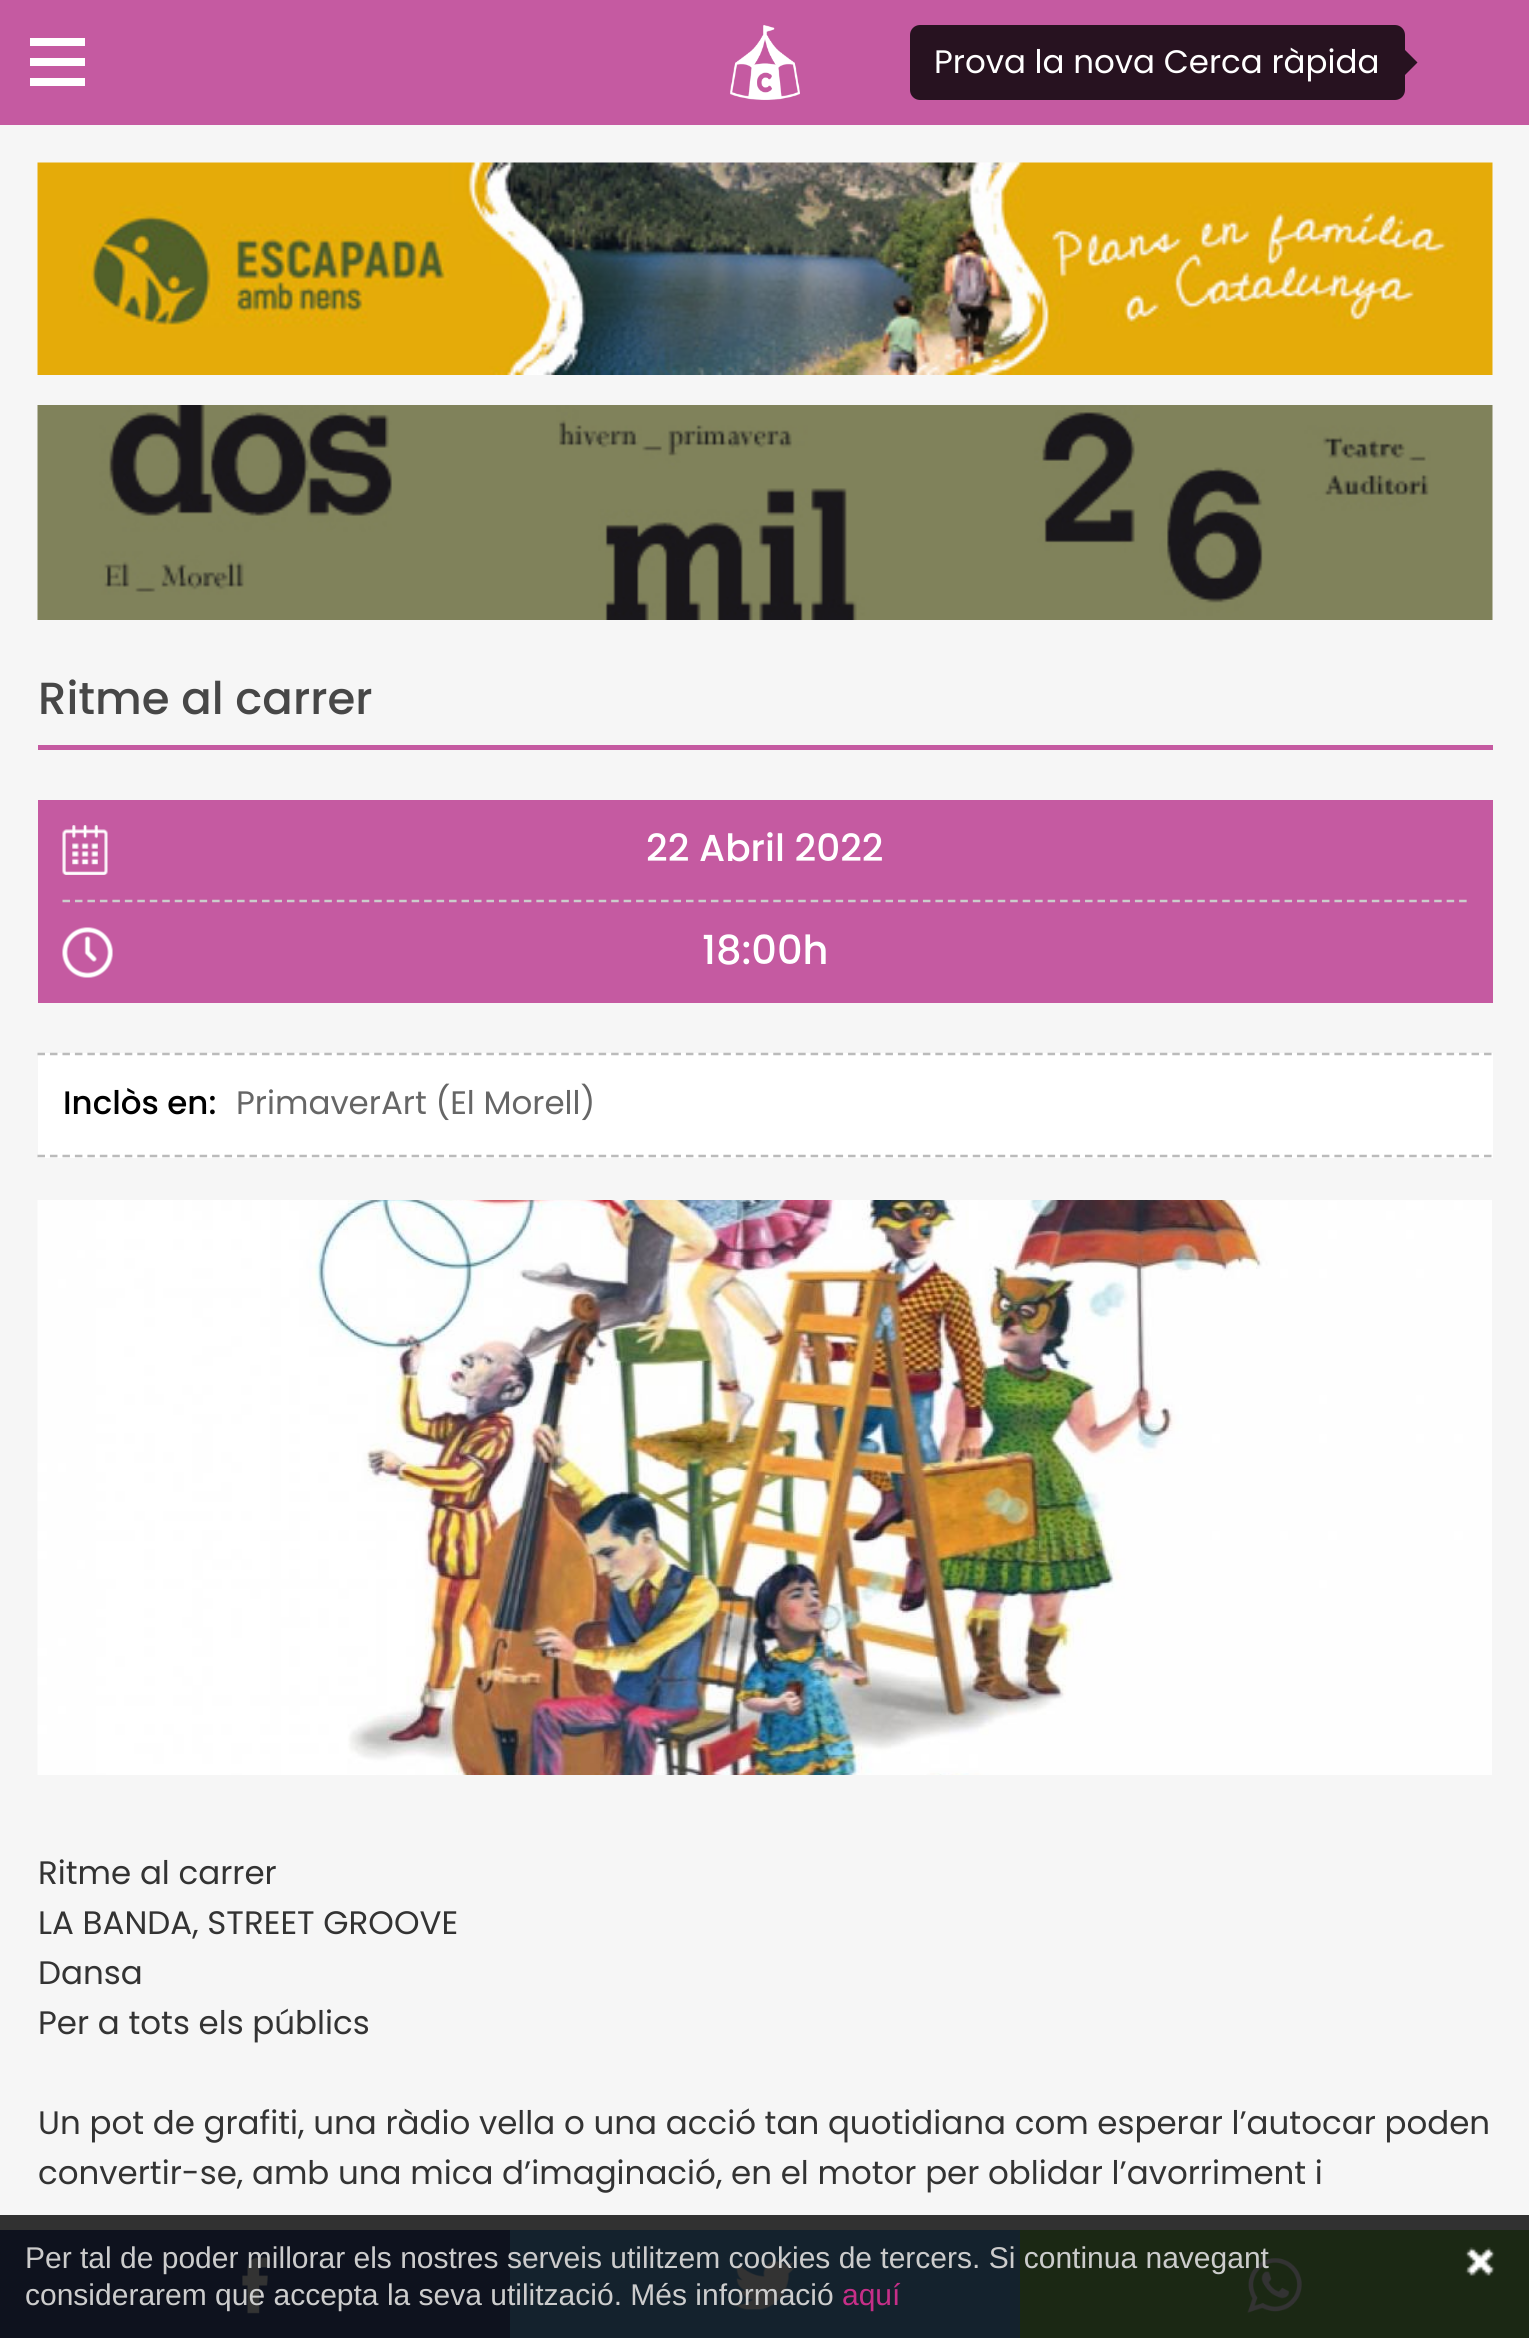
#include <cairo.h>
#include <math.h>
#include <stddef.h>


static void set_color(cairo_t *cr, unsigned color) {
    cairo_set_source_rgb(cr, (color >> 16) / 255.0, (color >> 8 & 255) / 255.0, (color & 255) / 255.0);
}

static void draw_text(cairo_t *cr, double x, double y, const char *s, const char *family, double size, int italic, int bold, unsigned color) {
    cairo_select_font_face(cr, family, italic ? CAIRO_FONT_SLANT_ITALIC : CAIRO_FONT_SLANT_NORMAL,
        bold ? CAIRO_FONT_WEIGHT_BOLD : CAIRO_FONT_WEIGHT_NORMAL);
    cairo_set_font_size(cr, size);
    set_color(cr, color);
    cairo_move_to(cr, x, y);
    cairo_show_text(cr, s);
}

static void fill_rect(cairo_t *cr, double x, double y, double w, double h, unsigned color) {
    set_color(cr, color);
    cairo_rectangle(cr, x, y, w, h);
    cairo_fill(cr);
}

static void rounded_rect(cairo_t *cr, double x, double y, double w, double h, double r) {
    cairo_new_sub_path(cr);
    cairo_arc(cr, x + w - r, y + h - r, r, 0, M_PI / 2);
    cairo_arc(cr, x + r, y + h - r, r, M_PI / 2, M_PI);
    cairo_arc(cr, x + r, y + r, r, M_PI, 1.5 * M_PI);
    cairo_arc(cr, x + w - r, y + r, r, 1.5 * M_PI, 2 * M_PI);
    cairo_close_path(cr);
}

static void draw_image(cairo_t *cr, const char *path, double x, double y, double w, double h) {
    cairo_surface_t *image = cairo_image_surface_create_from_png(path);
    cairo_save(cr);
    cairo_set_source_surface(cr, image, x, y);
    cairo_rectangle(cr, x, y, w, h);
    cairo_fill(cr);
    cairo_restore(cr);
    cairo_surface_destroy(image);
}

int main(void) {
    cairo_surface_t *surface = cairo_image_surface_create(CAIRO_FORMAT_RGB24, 1529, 2338);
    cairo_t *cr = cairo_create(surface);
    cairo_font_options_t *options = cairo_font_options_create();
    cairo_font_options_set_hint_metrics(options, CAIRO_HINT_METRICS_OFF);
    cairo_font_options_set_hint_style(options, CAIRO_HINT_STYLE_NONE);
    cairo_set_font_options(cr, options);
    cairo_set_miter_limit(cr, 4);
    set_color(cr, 0xF6F6F6);
    cairo_paint(cr);
    fill_rect(cr, 0, 0, 1529, 125, 0xC55AA1);
    fill_rect(cr, 30, 38, 55, 8, 0xFFFFFF);
    fill_rect(cr, 30, 58, 55, 8, 0xFFFFFF);
    fill_rect(cr, 30, 78, 55, 8, 0xFFFFFF);
    draw_image(cr, "assets/img1.png", 730, 25, 70, 75);
    set_color(cr, 0x271220);
    rounded_rect(cr, 910, 25, 495, 75, 10);
    cairo_fill(cr);
    draw_text(cr, 934, 73, "Prova la nova Cerca ràpida", "Poppins", 32.5, 0, 0, 0xFFFFFF);
    set_color(cr, 0x271220);
    cairo_new_path(cr);
    cairo_move_to(cr, 1405, 75);
    cairo_line_to(cr, 1405, 50);
    cairo_line_to(cr, 1417.5, 62.5);
    cairo_close_path(cr);
    cairo_fill(cr);
    draw_image(cr, "assets/img2.png", 37, 162, 1456, 213);
    draw_image(cr, "assets/img3.png", 37, 405, 1456, 215);
    fill_rect(cr, 38, 745, 1455, 5, 0xC55AA1);
    draw_text(cr, 38, 714, "Ritme al carrer", "Poppins Medium", 45, 0, 0, 0x474747);
    fill_rect(cr, 38, 800, 1455, 203, 0xC55AA1);
    draw_image(cr, "assets/img4.png", 62, 825, 46, 50);
    draw_text(cr, 646, 861, "22 Abril 2022", "Poppins Medium", 37.5, 0, 0, 0xFFFFFF);
    draw_image(cr, "assets/img5.png", 62, 927, 51, 51);
    cairo_new_path(cr);
    cairo_move_to(cr, 62.5, 901);
    cairo_line_to(cr, 1467.5, 901);
    set_color(cr, 0xCCCCCC);
    cairo_set_line_width(cr, 2.5);
    cairo_set_dash(cr, (double[]){7.5, 4.97}, 2, 0);
    cairo_stroke(cr);
    draw_text(cr, 702, 964, "18:00h", "Poppins Medium", 40, 0, 0, 0xFFFFFF);
    fill_rect(cr, 38, 1053, 1455, 105, 0xFFFFFF);
    cairo_new_path(cr);
    cairo_move_to(cr, 37.5, 1054);
    cairo_line_to(cr, 1492.5, 1054);
    set_color(cr, 0xBBBBBB);
    cairo_stroke(cr);
    cairo_new_path(cr);
    cairo_move_to(cr, 37.5, 1156);
    cairo_line_to(cr, 1492.5, 1156);
    cairo_stroke(cr);
    draw_text(cr, 63, 1114, "Inclòs en:", "Poppins Medium", 32.5, 0, 0, 0x000000);
    draw_text(cr, 236, 1114, "PrimaverArt (El Morell)", "Poppins", 32.5, 0, 0, 0x666666);
    draw_image(cr, "assets/img6.png", 37, 1200, 1455, 575);
    draw_text(cr, 38, 1884, "Ritme al carrer", "Poppins", 32.5, 0, 0, 0x333333);
    draw_text(cr, 38, 1934, "LA BANDA, STREET GROOVE", "Poppins", 32.5, 0, 0, 0x333333);
    draw_text(cr, 38, 1984, "Dansa", "Poppins", 32.5, 0, 0, 0x333333);
    draw_text(cr, 38, 2034, "Per a tots els públics", "Poppins", 32.5, 0, 0, 0x333333);
    draw_text(cr, 38, 2134, "Un pot de grafiti, una ràdio vella o una acció tan quotidiana com esperar l’autocar poden", "Poppins", 32.5, 0, 0, 0x333333);
    draw_text(cr, 38, 2184, "convertir-se, amb una mica d’imaginació, en el motor per oblidar l’avorriment i", "Poppins", 32.5, 0, 0, 0x333333);
    fill_rect(cr, 0, 2230, 510, 108, 0x455A97);
    draw_image(cr, "assets/img7.png", 242, 2257, 26, 57);
    fill_rect(cr, 510, 2230, 510, 108, 0x63A8E0);
    draw_image(cr, "assets/img8.png", 734, 2261, 61, 49);
    fill_rect(cr, 1020, 2230, 509, 108, 0x87CA63);
    draw_image(cr, "assets/img9.png", 1247, 2258, 55, 55);
    cairo_set_source_rgba(cr, 0, 0, 0, 0.8);
    cairo_rectangle(cr, 0, 2215, 1529, 123);
    cairo_fill(cr);
    draw_text(cr, 25, 2268, "Per tal de poder millorar els nostres serveis utilitzem cookies de tercers. Si continua navegant", "Liberation Sans", 30, 0, 0, 0xCCCCCC);
    draw_image(cr, "assets/img10.png", 1465, 2247, 30, 29);
    draw_text(cr, 25, 2305, "considerarem que accepta la seva utilització. Més informació", "Liberation Sans", 30, 0, 0, 0xCCCCCC);
    draw_text(cr, 842, 2305, "aquí", "Liberation Sans", 30, 0, 0, 0xC62F88);
    cairo_surface_write_to_png(surface, "output.png");
    cairo_font_options_destroy(options);
    cairo_destroy(cr);
    cairo_surface_destroy(surface);
    return 0;
}
